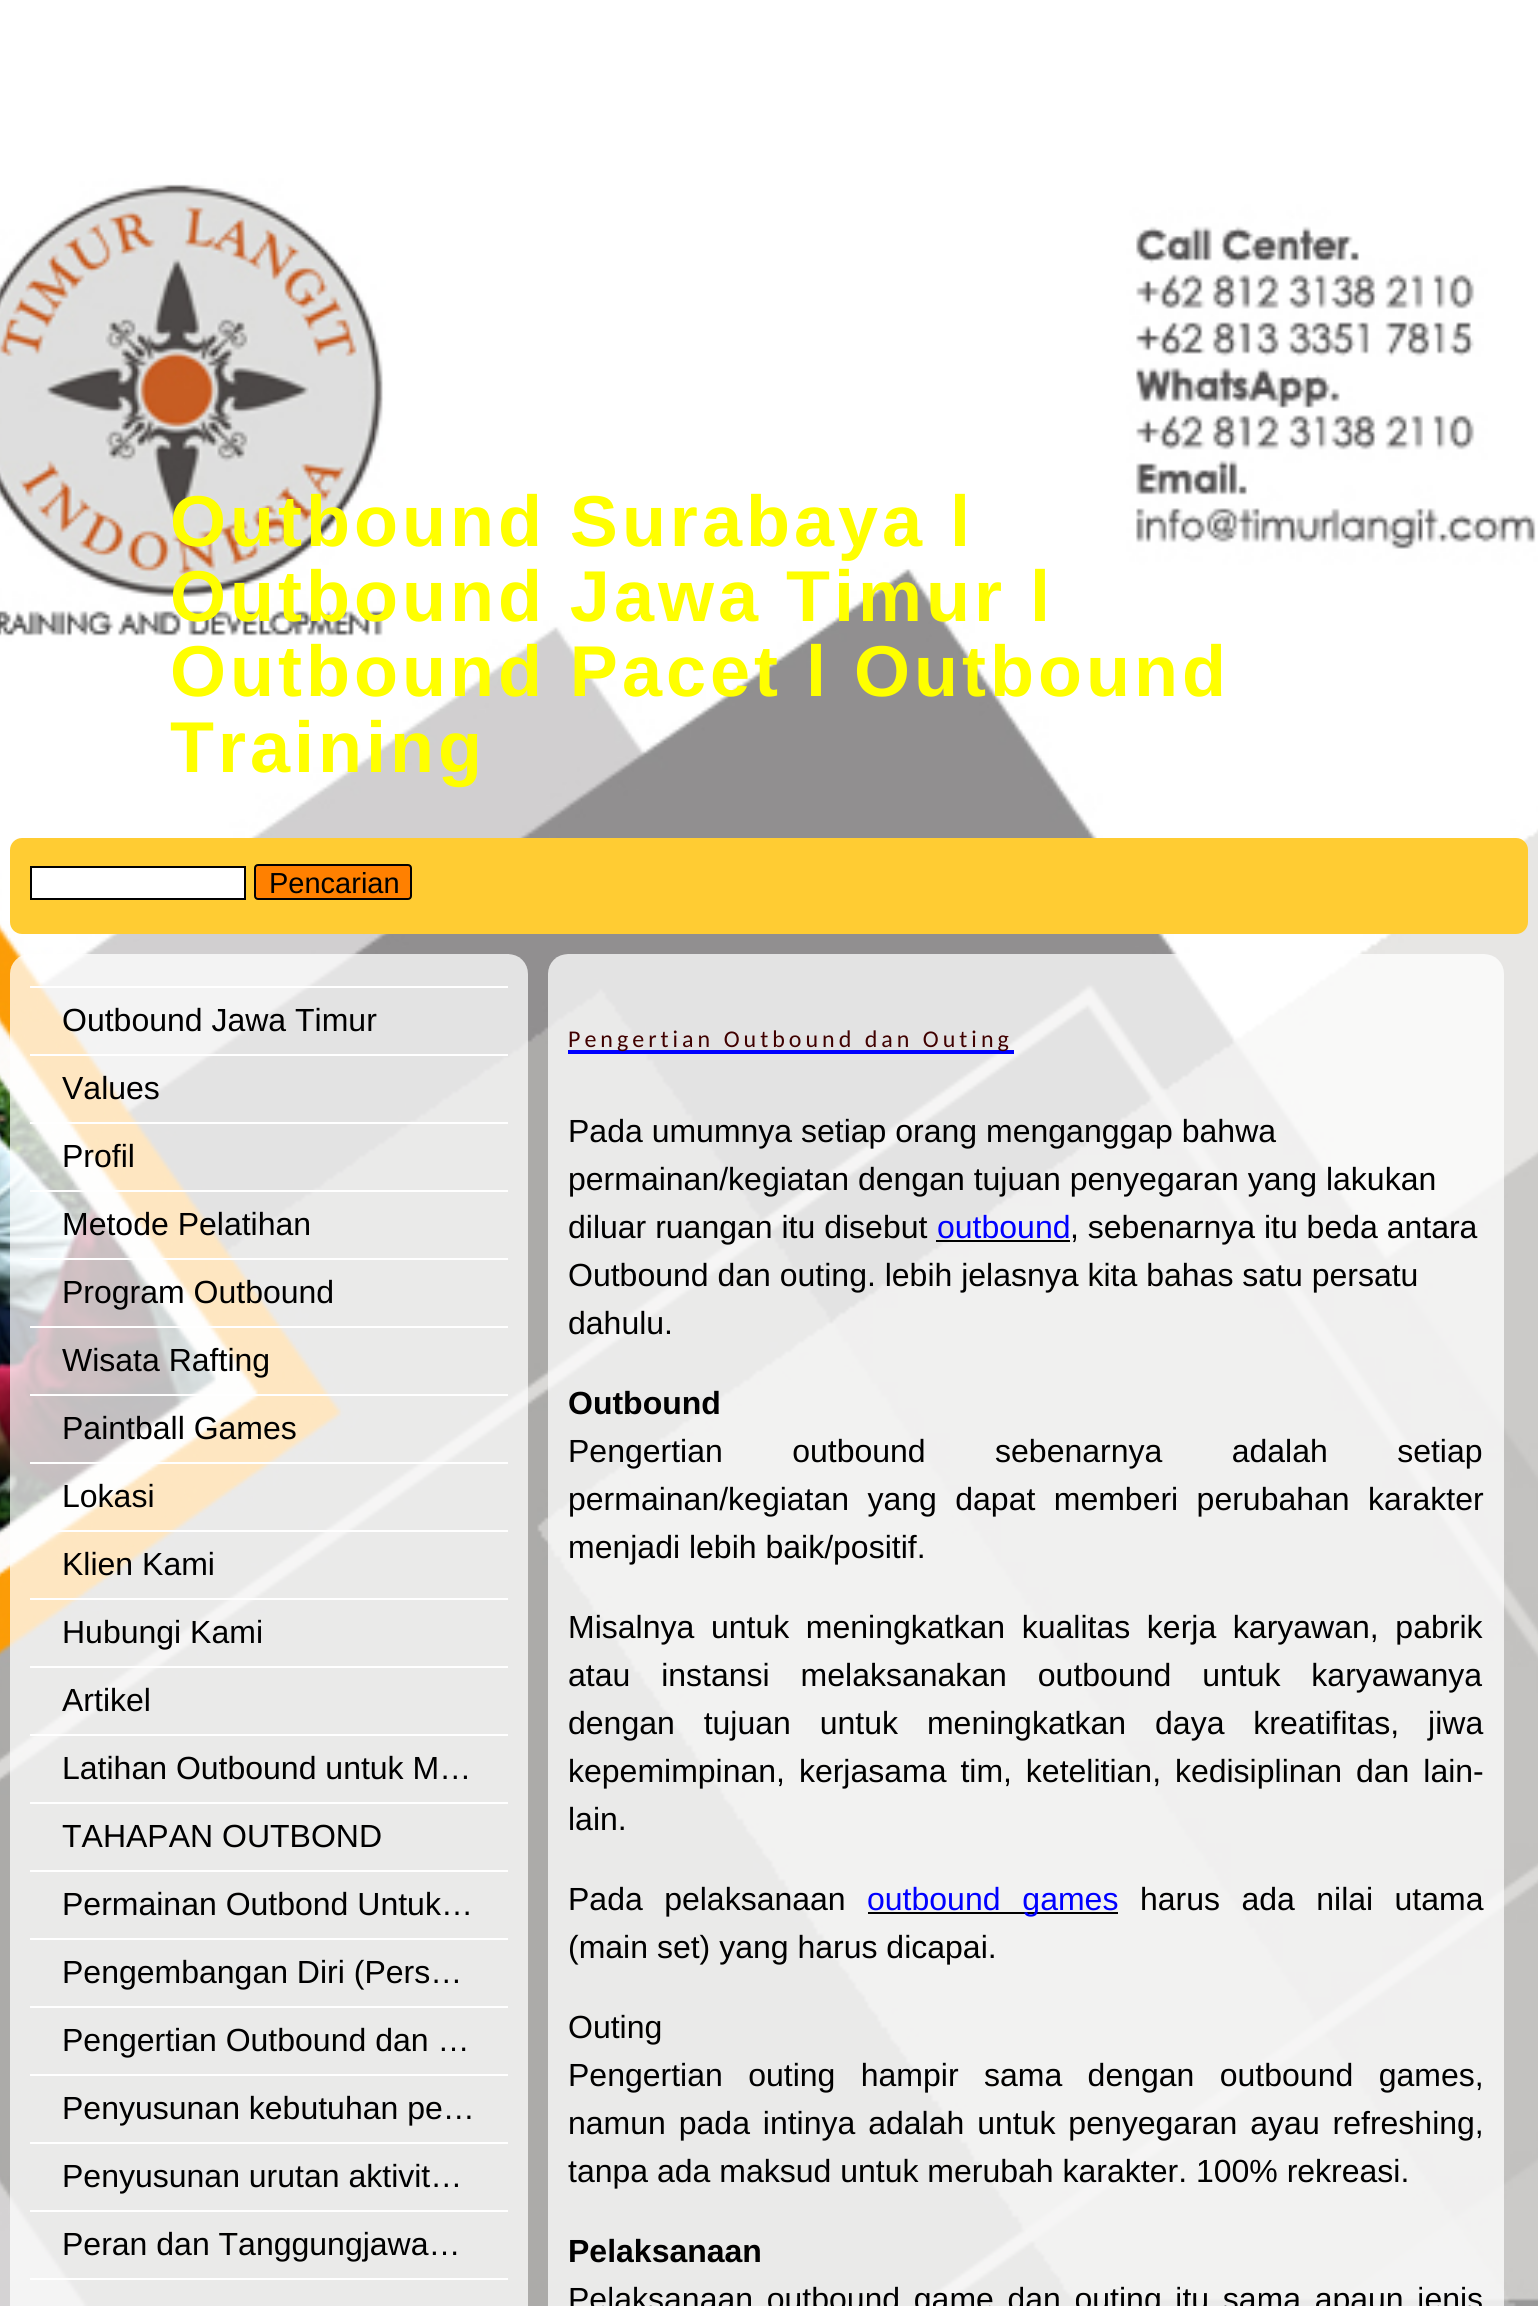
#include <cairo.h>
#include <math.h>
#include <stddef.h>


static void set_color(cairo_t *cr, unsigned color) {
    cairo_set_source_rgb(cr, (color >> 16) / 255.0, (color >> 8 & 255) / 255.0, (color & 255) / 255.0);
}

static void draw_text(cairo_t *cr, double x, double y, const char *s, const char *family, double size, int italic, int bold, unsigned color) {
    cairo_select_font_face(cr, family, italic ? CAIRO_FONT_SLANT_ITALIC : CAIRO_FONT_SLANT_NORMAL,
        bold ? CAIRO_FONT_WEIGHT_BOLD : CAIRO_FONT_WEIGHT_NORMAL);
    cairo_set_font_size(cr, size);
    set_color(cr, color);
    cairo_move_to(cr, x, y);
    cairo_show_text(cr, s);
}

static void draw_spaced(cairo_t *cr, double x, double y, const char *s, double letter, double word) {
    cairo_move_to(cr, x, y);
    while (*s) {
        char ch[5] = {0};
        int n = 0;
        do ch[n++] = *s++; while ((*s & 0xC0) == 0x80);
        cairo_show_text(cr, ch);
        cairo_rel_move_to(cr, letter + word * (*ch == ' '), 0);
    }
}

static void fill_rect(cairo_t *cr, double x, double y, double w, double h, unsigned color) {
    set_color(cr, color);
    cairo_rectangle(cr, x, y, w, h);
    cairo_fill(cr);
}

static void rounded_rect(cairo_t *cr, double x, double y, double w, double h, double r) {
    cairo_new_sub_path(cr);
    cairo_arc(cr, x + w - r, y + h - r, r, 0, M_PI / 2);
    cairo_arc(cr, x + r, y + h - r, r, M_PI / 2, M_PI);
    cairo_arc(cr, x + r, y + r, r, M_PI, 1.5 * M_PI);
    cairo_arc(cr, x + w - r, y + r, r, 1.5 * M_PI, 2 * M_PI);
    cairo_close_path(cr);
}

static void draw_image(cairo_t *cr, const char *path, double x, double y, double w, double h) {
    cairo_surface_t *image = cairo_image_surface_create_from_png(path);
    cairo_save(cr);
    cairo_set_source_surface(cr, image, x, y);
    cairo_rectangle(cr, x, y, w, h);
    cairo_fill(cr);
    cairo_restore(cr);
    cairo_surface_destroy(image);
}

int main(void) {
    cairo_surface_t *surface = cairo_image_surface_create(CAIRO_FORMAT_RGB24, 1538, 2306);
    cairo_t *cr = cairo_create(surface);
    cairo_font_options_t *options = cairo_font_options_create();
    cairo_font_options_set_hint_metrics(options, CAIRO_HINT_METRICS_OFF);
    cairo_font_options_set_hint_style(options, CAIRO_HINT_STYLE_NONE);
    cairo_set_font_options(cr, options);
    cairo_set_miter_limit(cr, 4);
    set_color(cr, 0xFFFFFF);
    cairo_paint(cr);
    draw_image(cr, "assets/img1.png", 0, 0, 1538, 2306);
    cairo_select_font_face(cr, "Liberation Sans", CAIRO_FONT_SLANT_NORMAL, CAIRO_FONT_WEIGHT_BOLD);
    cairo_set_font_size(cr, 72);
    set_color(cr, 0xFFFF00);
    draw_spaced(cr, 170, 546, "Outbound Surabaya l", 4, 0);
    draw_spaced(cr, 170, 621, "Outbound Jawa Timur l", 4, 0);
    draw_spaced(cr, 170, 696, "Outbound Pacet l Outbound", 4, 0);
    draw_spaced(cr, 170, 772, "Training", 4, 0);
    set_color(cr, 0xFFCC33);
    rounded_rect(cr, 10, 838, 1518, 96, 12);
    cairo_fill(cr);
    set_color(cr, 0xFFFFFF);
    cairo_rectangle(cr, 31, 867, 214, 32);
    cairo_fill_preserve(cr);
    set_color(cr, 0x010101);
    cairo_stroke(cr);
    set_color(cr, 0xFF8000);
    rounded_rect(cr, 255, 865, 156, 34, 3);
    cairo_fill_preserve(cr);
    set_color(cr, 0x010101);
    cairo_stroke(cr);
    draw_text(cr, 269, 893, "Pencarian", "Liberation Sans", 29, 0, 0, 0x000000);
    draw_image(cr, "assets/img2.png", 10, 954, 518, 1352);
    fill_rect(cr, 30, 986, 478, 2, 0xFFFFFF);
    draw_text(cr, 62, 1031, "Outbound Jawa Timur", "Liberation Sans", 32, 0, 0, 0x000000);
    fill_rect(cr, 30, 1054, 478, 2, 0xFFFFFF);
    draw_text(cr, 62, 1099, "Values", "Liberation Sans", 32, 0, 0, 0x000000);
    fill_rect(cr, 30, 1122, 478, 2, 0xFFFFFF);
    draw_text(cr, 62, 1167, "Profil", "Liberation Sans", 32, 0, 0, 0x000000);
    fill_rect(cr, 30, 1190, 478, 2, 0xFFFFFF);
    draw_text(cr, 62, 1235, "Metode Pelatihan", "Liberation Sans", 32, 0, 0, 0x000000);
    fill_rect(cr, 30, 1258, 478, 2, 0xFFFFFF);
    draw_text(cr, 62, 1303, "Program Outbound", "Liberation Sans", 32, 0, 0, 0x000000);
    fill_rect(cr, 30, 1326, 478, 2, 0xFFFFFF);
    draw_text(cr, 62, 1371, "Wisata Rafting", "Liberation Sans", 32, 0, 0, 0x000000);
    fill_rect(cr, 30, 1394, 478, 2, 0xFFFFFF);
    draw_text(cr, 62, 1439, "Paintball Games", "Liberation Sans", 32, 0, 0, 0x000000);
    fill_rect(cr, 30, 1462, 478, 2, 0xFFFFFF);
    draw_text(cr, 62, 1507, "Lokasi", "Liberation Sans", 32, 0, 0, 0x000000);
    fill_rect(cr, 54, 1530, 454, 2, 0xFFFFFF);
    draw_text(cr, 62, 1575, "Klien Kami", "Liberation Sans", 32, 0, 0, 0x000000);
    fill_rect(cr, 30, 1598, 478, 2, 0xFFFFFF);
    draw_text(cr, 62, 1643, "Hubungi Kami", "Liberation Sans", 32, 0, 0, 0x000000);
    fill_rect(cr, 30, 1666, 478, 2, 0xFFFFFF);
    draw_text(cr, 62, 1711, "Artikel", "Liberation Sans", 32, 0, 0, 0x000000);
    fill_rect(cr, 30, 1734, 478, 2, 0xFFFFFF);
    draw_text(cr, 62, 1779, "Latihan Outbound untuk M…", "Liberation Sans", 32, 0, 0, 0x000000);
    fill_rect(cr, 30, 1802, 478, 2, 0xFFFFFF);
    draw_text(cr, 62, 1847, "TAHAPAN OUTBOND", "Liberation Sans", 32, 0, 0, 0x000000);
    fill_rect(cr, 30, 1870, 478, 2, 0xFFFFFF);
    draw_text(cr, 62, 1915, "Permainan Outbond Untuk…", "Liberation Sans", 32, 0, 0, 0x000000);
    fill_rect(cr, 30, 1938, 478, 2, 0xFFFFFF);
    draw_text(cr, 62, 1983, "Pengembangan Diri (Pers…", "Liberation Sans", 32, 0, 0, 0x000000);
    fill_rect(cr, 30, 2006, 478, 2, 0xFFFFFF);
    draw_text(cr, 62, 2051, "Pengertian Outbound dan …", "Liberation Sans", 32, 0, 0, 0x000000);
    fill_rect(cr, 30, 2074, 478, 2, 0xFFFFFF);
    draw_text(cr, 62, 2119, "Penyusunan kebutuhan pe…", "Liberation Sans", 32, 0, 0, 0x000000);
    fill_rect(cr, 30, 2142, 478, 2, 0xFFFFFF);
    draw_text(cr, 62, 2187, "Penyusunan urutan aktivit…", "Liberation Sans", 32, 0, 0, 0x000000);
    fill_rect(cr, 30, 2210, 478, 2, 0xFFFFFF);
    draw_text(cr, 62, 2255, "Peran dan Tanggungjawa…", "Liberation Sans", 32, 0, 0, 0x000000);
    fill_rect(cr, 30, 2278, 478, 2, 0xFFFFFF);
    draw_image(cr, "assets/img3.png", 548, 954, 956, 1352);
    fill_rect(cr, 568, 1050, 446, 4, 0x0000FF);
    cairo_select_font_face(cr, "Carlito", CAIRO_FONT_SLANT_NORMAL, CAIRO_FONT_WEIGHT_NORMAL);
    cairo_set_font_size(cr, 24);
    set_color(cr, 0x400000);
    draw_spaced(cr, 568, 1047, "Pengertian Outbound dan Outing", 4, 0);
    draw_text(cr, 568, 1142, "Pada umumnya setiap orang menganggap bahwa", "Liberation Sans", 32, 0, 0, 0x000000);
    draw_text(cr, 568, 1190, "permainan/kegiatan dengan tujuan penyegaran yang lakukan", "Liberation Sans", 32, 0, 0, 0x000000);
    draw_text(cr, 568, 1238, "diluar ruangan itu disebut", "Liberation Sans", 32, 0, 0, 0x000000);
    draw_text(cr, 937, 1238, "outbound", "Liberation Sans", 32, 0, 0, 0x0000FF);
    draw_text(cr, 1070, 1238, ", sebenarnya itu beda antara", "Liberation Sans", 32, 0, 0, 0x000000);
    fill_rect(cr, 936, 1240, 134, 2, 0x000000);
    draw_text(cr, 568, 1286, "Outbound dan outing. lebih jelasnya kita bahas satu persatu", "Liberation Sans", 32, 0, 0, 0x000000);
    draw_text(cr, 568, 1334, "dahulu.", "Liberation Sans", 32, 0, 0, 0x000000);
    draw_text(cr, 568, 1414, "Outbound", "Liberation Sans", 32, 0, 1, 0x000000);
    cairo_select_font_face(cr, "Liberation Sans", CAIRO_FONT_SLANT_NORMAL, CAIRO_FONT_WEIGHT_NORMAL);
    draw_spaced(cr, 568, 1462, "Pengertian outbound sebenarnya adalah setiap", 0, 60.5);
    draw_spaced(cr, 568, 1510, "permainan/kegiatan yang dapat memberi perubahan karakter", 0, 9.5);
    draw_text(cr, 568, 1558, "menjadi lebih baik/positif.", "Liberation Sans", 32, 0, 0, 0x000000);
    draw_spaced(cr, 568, 1638, "Misalnya untuk meningkatkan kualitas kerja karyawan, pabrik", 0, 7.75);
    draw_spaced(cr, 568, 1686, "atau instansi melaksanakan outbound untuk karyawanya", 0, 22);
    draw_spaced(cr, 568, 1734, "dengan tujuan untuk meningkatkan daya kreatifitas, jiwa", 0, 20);
    draw_spaced(cr, 568, 1782, "kepemimpinan, kerjasama tim, ketelitian, kedisiplinan dan lain-", 0, 5);
    draw_text(cr, 568, 1830, "lain.", "Liberation Sans", 32, 0, 0, 0x000000);
    draw_spaced(cr, 568, 1910, "Pada pelaksanaan", 0, 12.5);
    fill_rect(cr, 868, 1912, 250, 2, 0x000000);
    set_color(cr, 0x0000FF);
    draw_spaced(cr, 867, 1910, "outbound games", 0, 13);
    set_color(cr, 0x000000);
    draw_spaced(cr, 1140, 1910, "harus ada nilai utama", 0, 12.5);
    draw_text(cr, 568, 1958, "(main set) yang harus dicapai.", "Liberation Sans", 32, 0, 0, 0x000000);
    draw_text(cr, 568, 2038, "Outing", "Liberation Sans", 32, 0, 0, 0x000000);
    draw_spaced(cr, 568, 2086, "Pengertian outing hampir sama dengan outbound games,", 0, 16.5);
    draw_spaced(cr, 568, 2134, "namun pada intinya adalah untuk penyegaran ayau refreshing,", 0, 4);
    draw_text(cr, 568, 2182, "tanpa ada maksud untuk merubah karakter. 100% rekreasi.", "Liberation Sans", 32, 0, 0, 0x000000);
    draw_text(cr, 568, 2262, "Pelaksanaan", "Liberation Sans", 32, 0, 1, 0x000000);
    cairo_select_font_face(cr, "Liberation Sans", CAIRO_FONT_SLANT_NORMAL, CAIRO_FONT_WEIGHT_NORMAL);
    draw_spaced(cr, 568, 2310, "Pelaksanaan outbound game dan outing itu sama apaun jenis", 0, 4.75);
    cairo_surface_write_to_png(surface, "output.png");
    cairo_font_options_destroy(options);
    cairo_destroy(cr);
    cairo_surface_destroy(surface);
    return 0;
}
